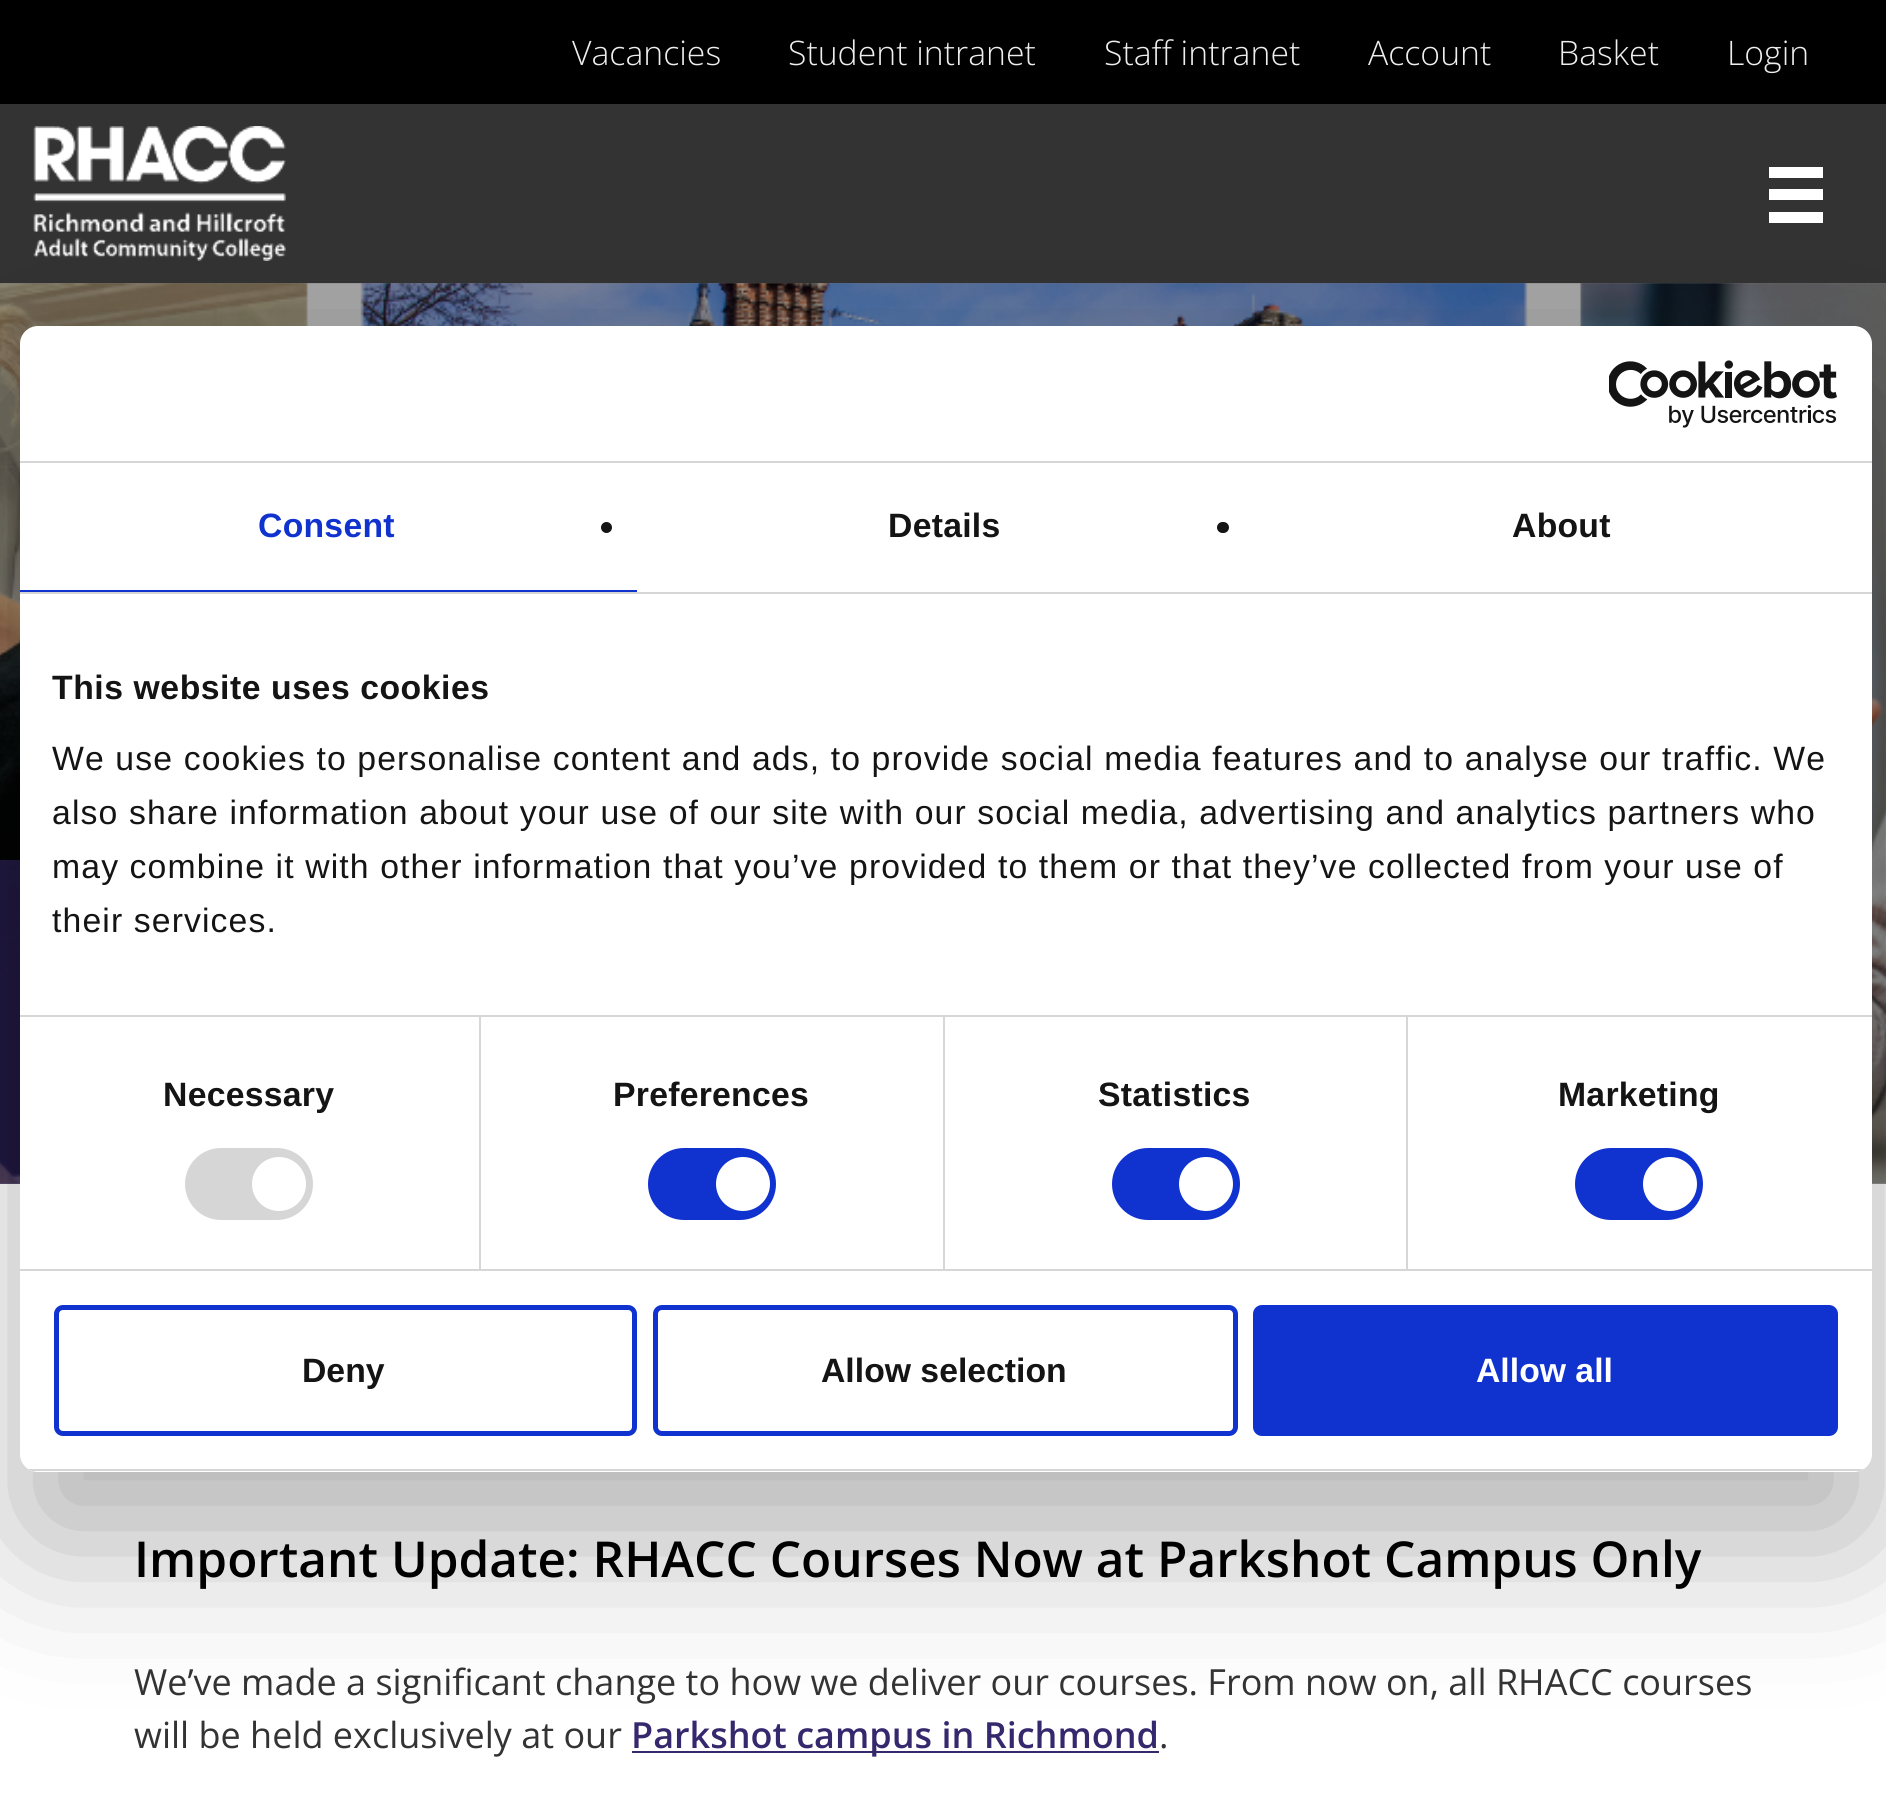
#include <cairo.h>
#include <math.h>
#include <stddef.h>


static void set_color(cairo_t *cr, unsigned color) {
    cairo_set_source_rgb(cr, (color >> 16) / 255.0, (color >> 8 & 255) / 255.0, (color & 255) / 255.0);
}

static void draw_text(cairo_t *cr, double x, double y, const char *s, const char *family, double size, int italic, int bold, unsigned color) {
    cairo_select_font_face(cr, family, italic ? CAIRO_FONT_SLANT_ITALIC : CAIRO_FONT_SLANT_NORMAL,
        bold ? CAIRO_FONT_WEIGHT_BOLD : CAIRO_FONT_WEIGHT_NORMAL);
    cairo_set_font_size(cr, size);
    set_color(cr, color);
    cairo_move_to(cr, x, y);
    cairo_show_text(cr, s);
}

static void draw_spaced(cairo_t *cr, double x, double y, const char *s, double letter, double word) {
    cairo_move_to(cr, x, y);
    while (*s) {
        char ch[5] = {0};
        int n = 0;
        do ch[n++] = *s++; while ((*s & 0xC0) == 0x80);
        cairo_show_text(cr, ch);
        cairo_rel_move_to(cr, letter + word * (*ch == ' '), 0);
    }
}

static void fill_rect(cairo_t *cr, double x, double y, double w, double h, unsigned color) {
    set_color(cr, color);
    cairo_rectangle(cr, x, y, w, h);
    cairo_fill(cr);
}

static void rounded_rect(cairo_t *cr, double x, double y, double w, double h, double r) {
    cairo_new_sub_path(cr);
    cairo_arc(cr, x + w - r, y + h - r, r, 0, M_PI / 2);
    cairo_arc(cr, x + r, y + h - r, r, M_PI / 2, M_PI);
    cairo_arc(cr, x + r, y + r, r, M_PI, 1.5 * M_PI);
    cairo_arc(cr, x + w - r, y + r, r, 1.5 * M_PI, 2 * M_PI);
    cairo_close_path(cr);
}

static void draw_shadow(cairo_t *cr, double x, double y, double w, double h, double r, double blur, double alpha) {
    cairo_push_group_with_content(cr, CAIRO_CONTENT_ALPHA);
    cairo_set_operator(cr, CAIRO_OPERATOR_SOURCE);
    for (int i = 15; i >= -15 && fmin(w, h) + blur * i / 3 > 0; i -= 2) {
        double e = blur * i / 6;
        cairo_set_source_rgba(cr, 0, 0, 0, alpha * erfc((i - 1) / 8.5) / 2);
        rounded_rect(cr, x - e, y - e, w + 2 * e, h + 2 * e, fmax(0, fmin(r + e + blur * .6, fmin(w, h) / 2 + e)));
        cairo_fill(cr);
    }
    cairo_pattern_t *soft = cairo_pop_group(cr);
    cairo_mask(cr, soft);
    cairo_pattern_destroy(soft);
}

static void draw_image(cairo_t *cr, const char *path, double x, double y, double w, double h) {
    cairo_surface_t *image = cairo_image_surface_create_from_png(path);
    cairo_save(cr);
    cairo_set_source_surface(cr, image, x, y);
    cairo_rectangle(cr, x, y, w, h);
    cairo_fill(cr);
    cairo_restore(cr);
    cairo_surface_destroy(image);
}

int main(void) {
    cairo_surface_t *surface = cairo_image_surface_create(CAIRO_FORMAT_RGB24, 1886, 1797);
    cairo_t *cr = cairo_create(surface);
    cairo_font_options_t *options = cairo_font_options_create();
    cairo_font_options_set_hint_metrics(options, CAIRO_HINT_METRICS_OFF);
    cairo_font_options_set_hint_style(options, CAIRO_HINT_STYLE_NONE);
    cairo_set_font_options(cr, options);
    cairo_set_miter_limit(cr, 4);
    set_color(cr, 0xFFFFFF);
    cairo_paint(cr);
    fill_rect(cr, 0, 1183, 1886, 1, 0xA6A6A6);
    fill_rect(cr, 0, 0, 1886, 104, 0x000000);
    draw_text(cr, 572, 65, "Vacancies", "Open Sans Light", 33.75, 0, 0, 0xEEEEEE);
    draw_text(cr, 788, 65, "Student intranet", "Open Sans Light", 33.75, 0, 0, 0xEEEEEE);
    draw_text(cr, 1104, 65, "Staff intranet", "Open Sans Light", 33.75, 0, 0, 0xEEEEEE);
    draw_text(cr, 1368, 65, "Account", "Open Sans Light", 33.75, 0, 0, 0xEEEEEE);
    draw_text(cr, 1558, 65, "Basket", "Open Sans Light", 33.75, 0, 0, 0xEEEEEE);
    draw_text(cr, 1727, 65, "Login", "Open Sans Light", 33.75, 0, 0, 0xEEEEEE);
    fill_rect(cr, 0, 104, 1886, 180, 0x333333);
    draw_image(cr, "assets/img1.png", 33, 126, 253, 135);
    fill_rect(cr, 1769, 189, 54, 11, 0xFFFFFF);
    fill_rect(cr, 1769, 167, 54, 11, 0xFFFFFF);
    fill_rect(cr, 1769, 212, 54, 11, 0xFFFFFF);
    draw_image(cr, "assets/img2.png", 0, 283, 1886, 901);
    cairo_set_source_rgba(cr, 0.212, 0.157, 0.427, 0.6);
    cairo_rectangle(cr, 0, 860, 20, 324);
    cairo_fill(cr);
    fill_rect(cr, 632, 1751, 527, 2, 0x36286D);
    set_color(cr, 0x000000);
    draw_shadow(cr, 20, 398, 1852, 1146, 18, 76.5, 0.3);
    set_color(cr, 0xFFFFFF);
    rounded_rect(cr, 20, 326, 1852, 1146, 18);
    cairo_fill(cr);
    fill_rect(cr, 20, 461, 1852, 2, 0xD6D6D6);
    draw_image(cr, "assets/img3.png", 1609, 360, 228, 68);
    fill_rect(cr, 20, 592, 1852, 2, 0xD6D6D6);
    fill_rect(cr, 20, 590, 617, 2, 0x1032CF);
    cairo_select_font_face(cr, "Liberation Sans", CAIRO_FONT_SLANT_NORMAL, CAIRO_FONT_WEIGHT_BOLD);
    draw_spaced(cr, 258, 537, "Consent", 0.25, 0);
    set_color(cr, 0x141414);
    cairo_new_path(cr);
    cairo_arc(cr, 606.5, 527.5, 5.5, 0, 2 * M_PI);
    cairo_fill(cr);
    draw_spaced(cr, 888, 537, "Details", 0.25, 0);
    rounded_rect(cr, 1217, 522, 12, 11, 5.5);
    cairo_fill(cr);
    draw_spaced(cr, 1512, 537, "About", 0.25, 0);
    fill_rect(cr, 20, 1015, 1852, 2, 0xD6D6D6);
    set_color(cr, 0x141414);
    draw_spaced(cr, 52, 699, "This website uses cookies", 0.55, 0);
    cairo_select_font_face(cr, "Liberation Sans", CAIRO_FONT_SLANT_NORMAL, CAIRO_FONT_WEIGHT_NORMAL);
    draw_spaced(cr, 52, 770, "We use cookies to personalise content and ads, to provide social media features and to analyse our traffic. We", 1.12, 0);
    draw_spaced(cr, 52, 824, "also share information about your use of our site with our social media, advertising and analytics partners who", 1.12, 0);
    draw_spaced(cr, 52, 878, "may combine it with other information that you’ve provided to them or that they’ve collected from your use of", 1.12, 0);
    draw_spaced(cr, 52, 932, "their services.", 1.12, 0);
    fill_rect(cr, 20, 1269, 1852, 2, 0xD6D6D6);
    fill_rect(cr, 479, 1017, 2, 252, 0xD6D6D6);
    cairo_select_font_face(cr, "Liberation Sans", CAIRO_FONT_SLANT_NORMAL, CAIRO_FONT_WEIGHT_BOLD);
    set_color(cr, 0x141414);
    draw_spaced(cr, 163, 1106, "Necessary", 0.25, 0);
    set_color(cr, 0xD6D6D6);
    rounded_rect(cr, 185, 1148, 128, 72, 36);
    cairo_fill(cr);
    set_color(cr, 0xFFFFFF);
    cairo_arc(cr, 279, 1184, 27, 0, 2 * M_PI);
    cairo_fill(cr);
    fill_rect(cr, 943, 1017, 2, 252, 0xD6D6D6);
    set_color(cr, 0x141414);
    draw_spaced(cr, 613, 1106, "Preferences", 0.25, 0);
    set_color(cr, 0x1032CF);
    rounded_rect(cr, 648, 1148, 128, 72, 36);
    cairo_fill(cr);
    set_color(cr, 0xFFFFFF);
    cairo_arc(cr, 743, 1184, 27, 0, 2 * M_PI);
    cairo_fill(cr);
    fill_rect(cr, 1406, 1017, 2, 252, 0xD6D6D6);
    set_color(cr, 0x141414);
    draw_spaced(cr, 1098, 1106, "Statistics", 0.25, 0);
    set_color(cr, 0x1032CF);
    rounded_rect(cr, 1112, 1148, 128, 72, 36);
    cairo_fill(cr);
    set_color(cr, 0xFFFFFF);
    cairo_arc(cr, 1206, 1184, 27, 0, 2 * M_PI);
    cairo_fill(cr);
    set_color(cr, 0x141414);
    draw_spaced(cr, 1558, 1106, "Marketing", 0.25, 0);
    set_color(cr, 0x1032CF);
    rounded_rect(cr, 1575, 1148, 128, 72, 36);
    cairo_fill(cr);
    set_color(cr, 0xFFFFFF);
    cairo_arc(cr, 1670, 1184, 27, 0, 2 * M_PI);
    cairo_fill(cr);
    cairo_save(cr);
    rounded_rect(cr, 20, 326, 1852, 1146, 18);
    cairo_clip(cr);
    fill_rect(cr, 20, 1469, 1852, 2, 0xD6D6D6);
    cairo_restore(cr);
    rounded_rect(cr, 56.5, 1307.5, 578, 126, 6.5);
    set_color(cr, 0x1032CF);
    cairo_set_line_width(cr, 5);
    cairo_stroke(cr);
    draw_text(cr, 302, 1382, "Deny", "Liberation Sans", 33.75, 0, 1, 0x141414);
    rounded_rect(cr, 655.5, 1307.5, 580, 126, 6.5);
    set_color(cr, 0x1032CF);
    cairo_stroke(cr);
    draw_text(cr, 821, 1382, "Allow selection", "Liberation Sans", 33.75, 0, 1, 0x141414);
    set_color(cr, 0x1032CF);
    rounded_rect(cr, 1255.5, 1307.5, 580, 126, 6.5);
    cairo_fill_preserve(cr);
    cairo_stroke(cr);
    draw_text(cr, 1476, 1382, "Allow all", "Liberation Sans", 33.75, 0, 1, 0xFFFFFF);
    draw_text(cr, 134, 1577, "Important Update: RHACC Courses Now at Parkshot Campus Only", "Open Sans SemiBold", 49.5, 0, 0, 0x000000);
    draw_text(cr, 134, 1695, "We’ve made a significant change to how we deliver our courses. From now on, all RHACC courses", "Open Sans", 36, 0, 0, 0x333333);
    draw_text(cr, 134, 1748, "will be held exclusively at our", "Open Sans", 36, 0, 0, 0x333333);
    draw_text(cr, 631, 1748, "Parkshot campus in Richmond", "Open Sans SemiBold", 36, 0, 0, 0x36286D);
    draw_text(cr, 1159, 1748, ".", "Open Sans", 36, 0, 0, 0x333333);
    cairo_surface_write_to_png(surface, "output.png");
    cairo_font_options_destroy(options);
    cairo_destroy(cr);
    cairo_surface_destroy(surface);
    return 0;
}
